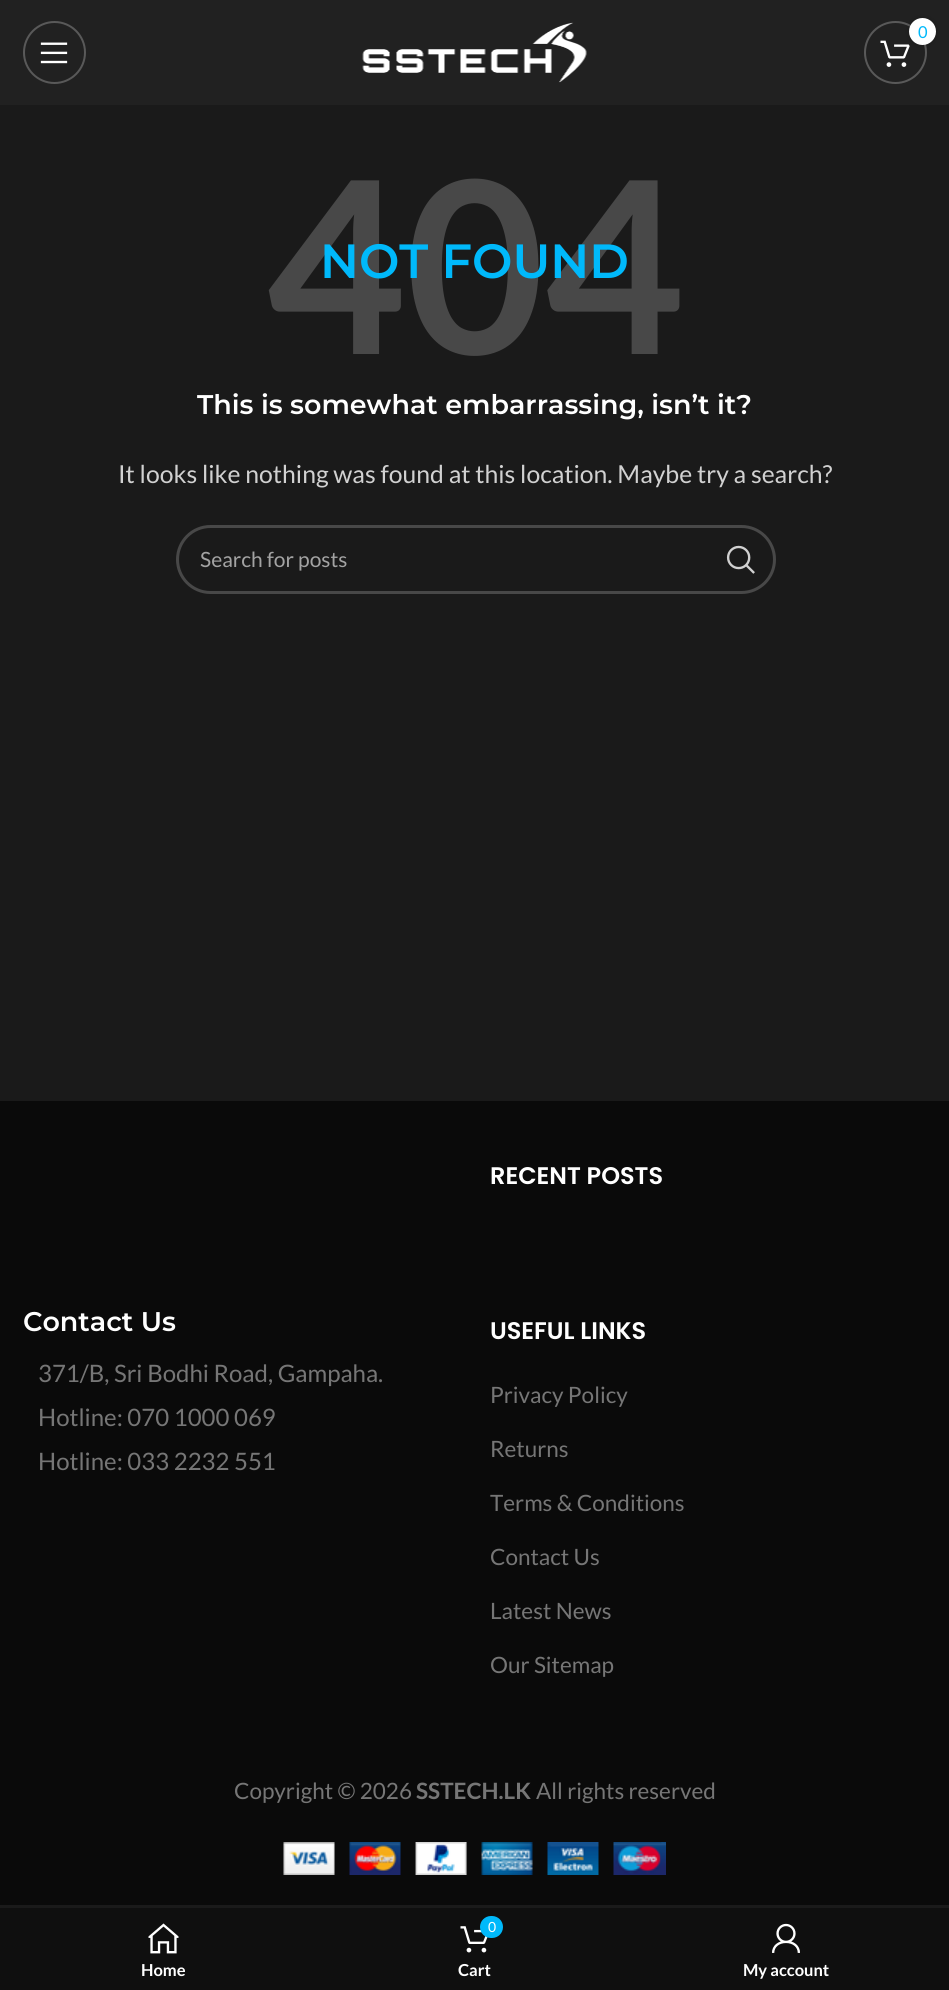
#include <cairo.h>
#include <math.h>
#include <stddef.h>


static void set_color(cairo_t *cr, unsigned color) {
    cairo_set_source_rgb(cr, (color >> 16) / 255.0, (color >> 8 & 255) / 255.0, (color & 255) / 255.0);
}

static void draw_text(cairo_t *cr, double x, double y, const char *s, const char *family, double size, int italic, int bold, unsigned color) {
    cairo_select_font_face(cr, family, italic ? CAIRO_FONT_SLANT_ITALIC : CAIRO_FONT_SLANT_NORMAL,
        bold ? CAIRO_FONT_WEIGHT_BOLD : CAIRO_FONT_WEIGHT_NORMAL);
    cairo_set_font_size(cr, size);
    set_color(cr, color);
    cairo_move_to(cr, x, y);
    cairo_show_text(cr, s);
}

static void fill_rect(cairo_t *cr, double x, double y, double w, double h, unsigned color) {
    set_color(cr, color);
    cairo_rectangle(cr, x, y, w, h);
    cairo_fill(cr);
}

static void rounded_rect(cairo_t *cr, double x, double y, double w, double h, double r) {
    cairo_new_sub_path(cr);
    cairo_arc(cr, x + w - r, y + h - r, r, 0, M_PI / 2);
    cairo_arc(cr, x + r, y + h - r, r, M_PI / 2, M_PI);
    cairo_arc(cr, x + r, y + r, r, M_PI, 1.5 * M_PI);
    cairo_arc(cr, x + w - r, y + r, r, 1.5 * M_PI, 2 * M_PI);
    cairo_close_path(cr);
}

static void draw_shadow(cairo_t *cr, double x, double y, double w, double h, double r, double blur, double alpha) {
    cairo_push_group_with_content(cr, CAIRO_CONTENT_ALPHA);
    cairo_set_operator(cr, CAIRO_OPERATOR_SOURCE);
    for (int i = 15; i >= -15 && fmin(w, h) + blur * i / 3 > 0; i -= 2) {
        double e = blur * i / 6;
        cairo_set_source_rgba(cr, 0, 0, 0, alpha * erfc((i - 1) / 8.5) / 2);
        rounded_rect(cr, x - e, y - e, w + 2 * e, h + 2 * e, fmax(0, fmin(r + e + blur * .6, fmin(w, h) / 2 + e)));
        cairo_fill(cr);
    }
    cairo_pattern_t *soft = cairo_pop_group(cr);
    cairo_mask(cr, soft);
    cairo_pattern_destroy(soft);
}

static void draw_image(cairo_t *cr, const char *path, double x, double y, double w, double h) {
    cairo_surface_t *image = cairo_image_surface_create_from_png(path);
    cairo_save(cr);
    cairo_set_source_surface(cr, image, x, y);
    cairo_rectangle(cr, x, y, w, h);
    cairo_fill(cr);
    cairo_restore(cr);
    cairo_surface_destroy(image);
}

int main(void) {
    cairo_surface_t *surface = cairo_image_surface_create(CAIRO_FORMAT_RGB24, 949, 1990);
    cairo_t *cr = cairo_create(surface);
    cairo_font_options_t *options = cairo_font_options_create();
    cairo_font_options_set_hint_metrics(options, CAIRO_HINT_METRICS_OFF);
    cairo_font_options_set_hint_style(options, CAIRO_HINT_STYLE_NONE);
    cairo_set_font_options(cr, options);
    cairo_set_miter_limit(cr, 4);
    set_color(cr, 0x1A1A1A);
    cairo_paint(cr);
    fill_rect(cr, 0, 0, 949, 105, 0x212121);
    cairo_arc(cr, 54.5, 52.5, 30.5, 0, 2 * M_PI);
    set_color(cr, 0x595959);
    cairo_stroke(cr);
    draw_image(cr, "assets/img1.png", 40, 42, 28, 22);
    draw_image(cr, "assets/img2.png", 362, 22, 225, 61);
    cairo_arc(cr, 895.5, 52.5, 30.5, 0, 2 * M_PI);
    cairo_stroke(cr);
    draw_image(cr, "assets/img3.png", 880, 40, 30, 27);
    set_color(cr, 0x000000);
    draw_shadow(cr, 909, 18, 27, 27, 13.5, 3, 0.17);
    set_color(cr, 0xFFFFFF);
    cairo_arc(cr, 922.5, 31.5, 13.5, 0, 2 * M_PI);
    cairo_fill(cr);
    draw_text(cr, 918, 38, "0", "Lato", 16.5, 0, 0, 0x00B9FB);
    draw_text(cr, 266, 354, "404", "Lato", 240, 0, 1, 0x484848);
    draw_text(cr, 320, 278, "NOT FOUND", "Montserrat Thin", 48, 0, 0, 0x00B9FB);
    draw_text(cr, 197, 414, "This is somewhat embarrassing, isn’t it?", "Montserrat Thin", 27, 0, 0, 0xFFFFFF);
    draw_text(cr, 118, 483, "It looks like nothing was found at this location. Maybe try a search?", "Lato", 24.75, 0, 0, 0xD1D1D1);
    rounded_rect(cr, 177.5, 526.5, 597, 66, 33);
    set_color(cr, 0x484848);
    cairo_set_line_width(cr, 3);
    cairo_stroke(cr);
    draw_text(cr, 200, 567, "Search for posts", "Lato", 21, 0, 0, 0xA3A3A3);
    draw_image(cr, "assets/img4.png", 726, 545, 29, 29);
    fill_rect(cr, 0, 1101, 949, 804, 0x0A0A0A);
    draw_text(cr, 23, 1331, "Contact Us", "Montserrat Thin", 27, 0, 0, 0xFFFFFF);
    draw_text(cr, 38, 1382, "371/B, Sri Bodhi Road, Gampaha.", "Lato", 24, 0, 0, 0x767676);
    draw_text(cr, 38, 1426, "Hotline: 070 1000 069", "Lato", 24, 0, 0, 0x767676);
    draw_text(cr, 38, 1470, "Hotline: 033 2232 551", "Lato", 24, 0, 0, 0x767676);
    draw_text(cr, 490, 1184, "RECENT POSTS", "Poppins SemiBold", 24, 0, 0, 0xFFFFFF);
    draw_text(cr, 490, 1339, "USEFUL LINKS", "Poppins SemiBold", 24, 0, 0, 0xFFFFFF);
    draw_text(cr, 490, 1403, "Privacy Policy", "Lato", 22.5, 0, 0, 0x767676);
    draw_text(cr, 490, 1457, "Returns", "Lato", 22.5, 0, 0, 0x767676);
    draw_text(cr, 490, 1511, "Terms & Conditions", "Lato", 22.5, 0, 0, 0x767676);
    draw_text(cr, 490, 1565, "Contact Us", "Lato", 22.5, 0, 0, 0x767676);
    draw_text(cr, 490, 1619, "Latest News", "Lato", 22.5, 0, 0, 0x767676);
    draw_text(cr, 490, 1673, "Our Sitemap", "Lato", 22.5, 0, 0, 0x767676);
    draw_text(cr, 234, 1799, "Copyright © 2026", "Lato", 22.5, 0, 0, 0x767676);
    draw_text(cr, 416, 1799, "SSTECH.LK", "Lato", 22.5, 0, 1, 0x767676);
    draw_text(cr, 536, 1799, "All rights reserved", "Lato", 22.5, 0, 0, 0x767676);
    draw_image(cr, "assets/img5.png", 283, 1842, 383, 33);
    fill_rect(cr, 0, 1908, 949, 82, 0x0F0F0F);
    draw_image(cr, "assets/img6.png", 148, 1923, 31, 31);
    draw_text(cr, 141, 1976, "Home", "Lato", 16.5, 0, 1, 0xFFFFFF);
    draw_image(cr, "assets/img7.png", 460, 1926, 28, 27);
    set_color(cr, 0x00B9FB);
    rounded_rect(cr, 480, 1916, 23, 22, 11);
    cairo_fill(cr);
    draw_text(cr, 488, 1932, "0", "Lato", 14, 0, 0, 0xFFFFFF);
    draw_text(cr, 458, 1976, "Cart", "Lato", 16.5, 0, 1, 0xFFFFFF);
    draw_image(cr, "assets/img8.png", 772, 1923, 28, 30);
    draw_text(cr, 743, 1976, "My account", "Lato", 16.5, 0, 1, 0xFFFFFF);
    cairo_surface_write_to_png(surface, "output.png");
    cairo_font_options_destroy(options);
    cairo_destroy(cr);
    cairo_surface_destroy(surface);
    return 0;
}
